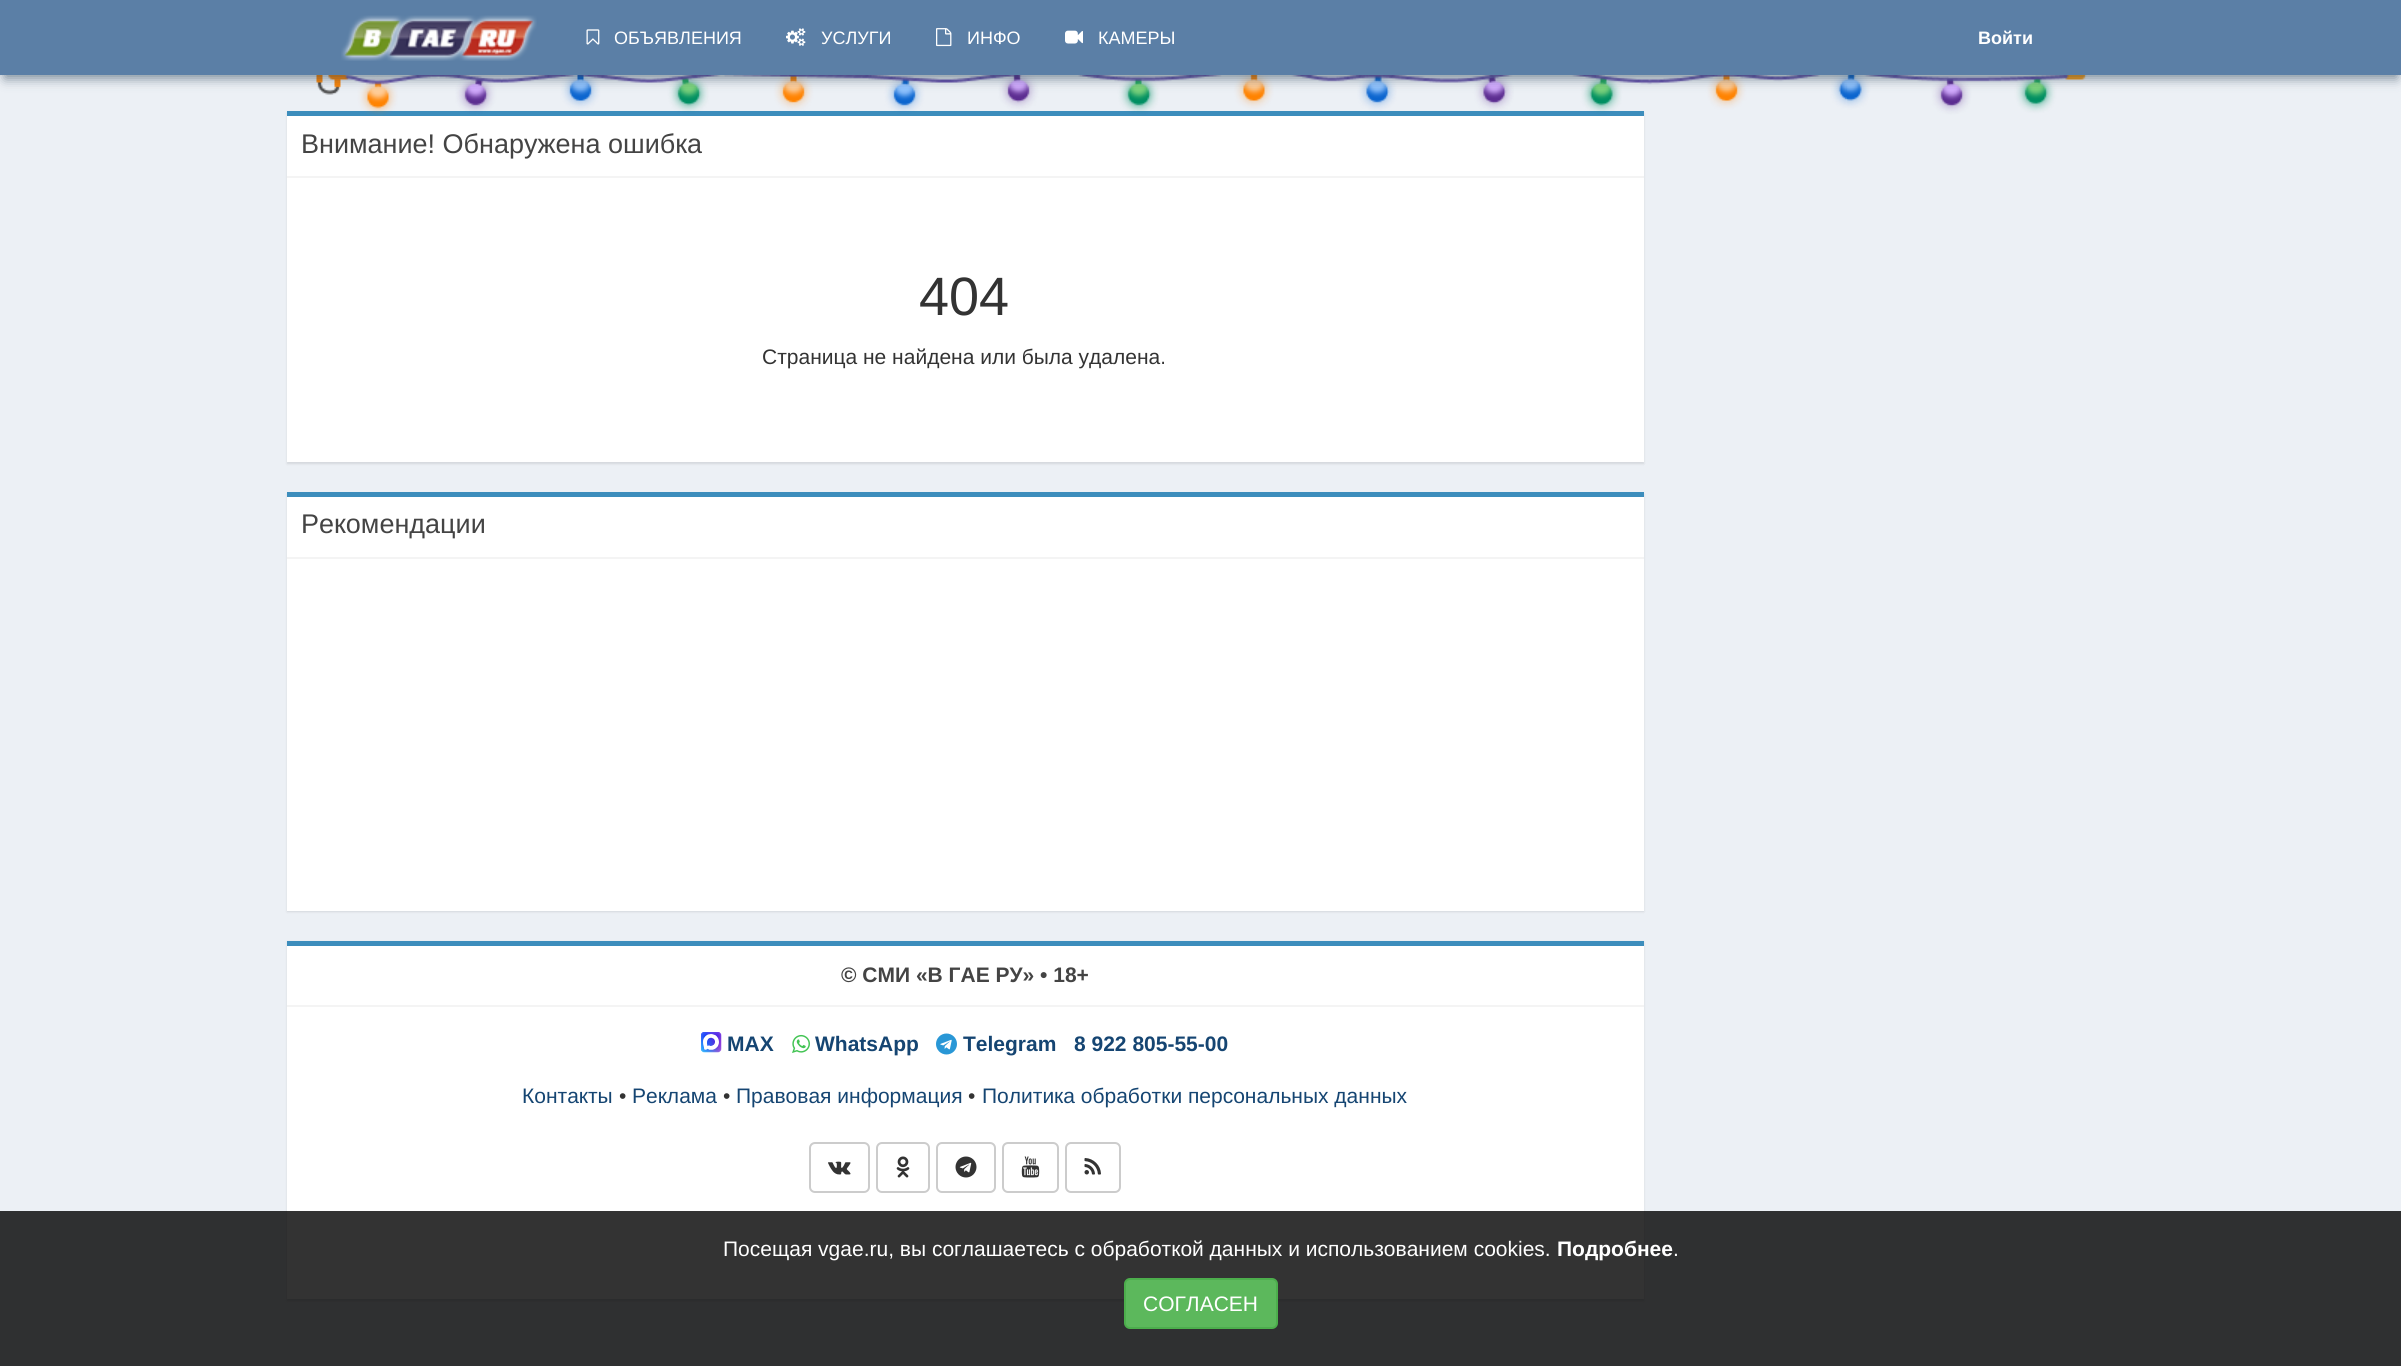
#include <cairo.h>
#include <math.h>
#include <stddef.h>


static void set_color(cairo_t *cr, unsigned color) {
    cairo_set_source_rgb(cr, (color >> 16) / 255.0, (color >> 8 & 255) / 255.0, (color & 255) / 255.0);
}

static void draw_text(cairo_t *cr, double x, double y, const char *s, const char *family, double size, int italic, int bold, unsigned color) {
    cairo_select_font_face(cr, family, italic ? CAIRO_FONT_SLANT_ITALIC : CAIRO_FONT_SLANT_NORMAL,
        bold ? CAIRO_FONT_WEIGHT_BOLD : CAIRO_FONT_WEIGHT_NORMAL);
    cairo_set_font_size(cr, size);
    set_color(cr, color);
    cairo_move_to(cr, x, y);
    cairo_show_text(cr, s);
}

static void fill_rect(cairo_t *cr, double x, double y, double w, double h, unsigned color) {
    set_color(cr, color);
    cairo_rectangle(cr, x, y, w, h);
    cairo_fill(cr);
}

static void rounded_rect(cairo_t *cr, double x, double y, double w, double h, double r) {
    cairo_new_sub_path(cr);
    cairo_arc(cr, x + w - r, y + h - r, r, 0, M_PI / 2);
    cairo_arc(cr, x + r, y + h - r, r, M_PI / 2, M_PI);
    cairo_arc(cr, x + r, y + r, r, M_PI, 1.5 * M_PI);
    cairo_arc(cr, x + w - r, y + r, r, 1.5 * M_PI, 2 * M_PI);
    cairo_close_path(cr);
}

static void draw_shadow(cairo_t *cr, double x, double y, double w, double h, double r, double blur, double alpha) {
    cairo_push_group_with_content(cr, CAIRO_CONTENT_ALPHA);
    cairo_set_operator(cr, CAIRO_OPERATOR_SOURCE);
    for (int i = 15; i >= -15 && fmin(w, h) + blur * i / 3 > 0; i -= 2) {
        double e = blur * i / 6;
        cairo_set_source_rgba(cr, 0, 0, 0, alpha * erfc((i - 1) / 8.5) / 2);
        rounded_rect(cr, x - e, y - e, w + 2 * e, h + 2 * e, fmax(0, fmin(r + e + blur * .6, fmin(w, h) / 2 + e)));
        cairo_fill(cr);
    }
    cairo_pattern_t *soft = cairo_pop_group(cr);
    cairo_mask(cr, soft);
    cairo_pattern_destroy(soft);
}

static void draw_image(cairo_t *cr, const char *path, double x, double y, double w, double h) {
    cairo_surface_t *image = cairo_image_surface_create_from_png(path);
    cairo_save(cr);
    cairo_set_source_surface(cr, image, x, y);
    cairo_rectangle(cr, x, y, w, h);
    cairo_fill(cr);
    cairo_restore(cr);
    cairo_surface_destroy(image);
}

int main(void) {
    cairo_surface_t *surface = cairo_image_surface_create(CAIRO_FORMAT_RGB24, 2401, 1366);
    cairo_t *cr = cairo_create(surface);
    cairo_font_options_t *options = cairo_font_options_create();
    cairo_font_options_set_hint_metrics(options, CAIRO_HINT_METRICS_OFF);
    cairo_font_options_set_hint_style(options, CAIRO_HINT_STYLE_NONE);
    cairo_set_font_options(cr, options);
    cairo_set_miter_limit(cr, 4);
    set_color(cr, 0xECF0F5);
    cairo_paint(cr);
    set_color(cr, 0x000000);
    draw_shadow(cr, 287, 113, 1357, 351, 0, 1, 0.1);
    fill_rect(cr, 287, 111, 1357, 5, 0x3C8DBC);
    draw_image(cr, "assets/img6.png", 316, 75, 1771, 41);
    set_color(cr, 0x223C50);
    draw_shadow(cr, 5, 12, 2392, 66, 0, 6, 0.6);
    fill_rect(cr, 0, 0, 2401, 75, 0x5B7FA6);
    draw_image(cr, "assets/img1.png", 341, 15, 196, 46);
    draw_image(cr, "assets/img2.png", 586, 29, 14, 16);
    draw_text(cr, 614, 44, "ОБЪЯВЛЕНИЯ", "Liberation Sans", 18, 0, 0, 0xFFFFFF);
    draw_image(cr, "assets/img3.png", 786, 28, 20, 18);
    draw_text(cr, 821, 44, "УСЛУГИ", "Liberation Sans", 18, 0, 0, 0xFFFFFF);
    draw_image(cr, "assets/img4.png", 936, 28, 16, 19);
    draw_text(cr, 967, 44, "ИНФО", "Liberation Sans", 18, 0, 0, 0xFFFFFF);
    draw_image(cr, "assets/img5.png", 1065, 30, 18, 14);
    draw_text(cr, 1098, 44, "КАМЕРЫ", "Liberation Sans", 18, 0, 0, 0xFFFFFF);
    draw_text(cr, 1978, 44, "Войти", "Liberation Sans", 18, 0, 1, 0xFFFFFF);
    fill_rect(cr, 287, 116, 1357, 346, 0xFFFFFF);
    fill_rect(cr, 287, 176, 1357, 2, 0xF4F4F4);
    draw_text(cr, 301, 153, "Внимание! Обнаружена ошибка", "Liberation Sans", 27, 0, 0, 0x444444);
    draw_text(cr, 919, 315, "404", "Liberation Sans", 54, 0, 0, 0x333333);
    draw_text(cr, 762, 364, "Страница не найдена или была удалена.", "Liberation Sans", 21, 0, 0, 0x333333);
    set_color(cr, 0x000000);
    draw_shadow(cr, 287, 494, 1357, 418, 0, 1, 0.1);
    fill_rect(cr, 287, 497, 1357, 414, 0xFFFFFF);
    fill_rect(cr, 287, 492, 1357, 5, 0x3C8DBC);
    fill_rect(cr, 287, 557, 1357, 2, 0xF4F4F4);
    draw_text(cr, 301, 533, "Рекомендации", "Liberation Sans", 27, 0, 0, 0x444444);
    set_color(cr, 0x000000);
    draw_shadow(cr, 287, 942, 1357, 359, 0, 1, 0.1);
    fill_rect(cr, 287, 946, 1357, 353, 0xFFFFFF);
    fill_rect(cr, 287, 941, 1357, 5, 0x3C8DBC);
    fill_rect(cr, 287, 1005, 1357, 2, 0xF4F4F4);
    draw_text(cr, 841, 982, "© СМИ «В ГАЕ РУ» • 18+", "Liberation Sans", 21, 0, 1, 0x444444);
    draw_image(cr, "assets/img7.png", 701, 1032, 21, 21);
    draw_text(cr, 727, 1051, "MAX", "Liberation Sans", 21, 0, 1, 0x154572);
    draw_image(cr, "assets/img8.png", 792, 1034, 18, 19);
    draw_text(cr, 815, 1051, "WhatsApp", "Liberation Sans", 21, 0, 1, 0x154572);
    draw_image(cr, "assets/img9.png", 936, 1033, 21, 22);
    draw_text(cr, 963, 1051, "Telegram", "Liberation Sans", 21, 0, 1, 0x154572);
    draw_text(cr, 1074, 1051, "8 922 805-55-00", "Liberation Sans", 21, 0, 1, 0x154572);
    draw_text(cr, 522, 1103, "Контакты", "Liberation Sans", 21, 0, 0, 0x154572);
    draw_text(cr, 619, 1103, "•", "Liberation Sans", 21, 0, 0, 0x333333);
    draw_text(cr, 632, 1103, "Реклама", "Liberation Sans", 21, 0, 0, 0x154572);
    draw_text(cr, 723, 1103, "•", "Liberation Sans", 21, 0, 0, 0x333333);
    draw_text(cr, 736, 1103, "Правовая информация", "Liberation Sans", 21, 0, 0, 0x154572);
    draw_text(cr, 968, 1103, "•", "Liberation Sans", 21, 0, 0, 0x333333);
    draw_text(cr, 982, 1103, "Политика обработки персональных данных", "Liberation Sans", 21, 0, 0, 0x154572);
    rounded_rect(cr, 810, 1143, 59, 49, 5);
    set_color(cr, 0xCCCCCC);
    cairo_stroke(cr);
    draw_image(cr, "assets/img10.png", 828, 1161, 23, 14);
    rounded_rect(cr, 877, 1143, 52, 49, 5);
    cairo_stroke(cr);
    draw_image(cr, "assets/img11.png", 896, 1156, 14, 22);
    rounded_rect(cr, 937, 1143, 58, 49, 5);
    cairo_stroke(cr);
    draw_image(cr, "assets/img12.png", 955, 1156, 22, 22);
    rounded_rect(cr, 1003, 1143, 55, 49, 5);
    cairo_stroke(cr);
    draw_image(cr, "assets/img13.png", 1021, 1156, 19, 22);
    rounded_rect(cr, 1066, 1143, 54, 49, 5);
    cairo_stroke(cr);
    draw_image(cr, "assets/img14.png", 1084, 1158, 17, 17);
    cairo_set_source_rgba(cr, 0, 0, 0, 0.8);
    cairo_rectangle(cr, 0, 1211, 2401, 155);
    cairo_fill(cr);
    draw_text(cr, 723, 1256, "Посещая vgae.ru, вы соглашаетесь с обработкой данных и использованием cookies.", "Liberation Sans", 21, 0, 0, 0xFFFFFF);
    draw_text(cr, 1557, 1256, "Подробнее", "Liberation Sans", 21, 0, 1, 0xFFFFFF);
    draw_text(cr, 1673, 1256, ".", "Liberation Sans", 21, 0, 0, 0xFFFFFF);
    set_color(cr, 0x5CB85C);
    rounded_rect(cr, 1125, 1279, 152, 49, 5);
    cairo_fill_preserve(cr);
    set_color(cr, 0x4CAE4C);
    cairo_stroke(cr);
    draw_text(cr, 1143, 1311, "СОГЛАСЕН", "Liberation Sans", 21, 0, 0, 0xFFFFFF);
    cairo_surface_write_to_png(surface, "output.png");
    cairo_font_options_destroy(options);
    cairo_destroy(cr);
    cairo_surface_destroy(surface);
    return 0;
}
